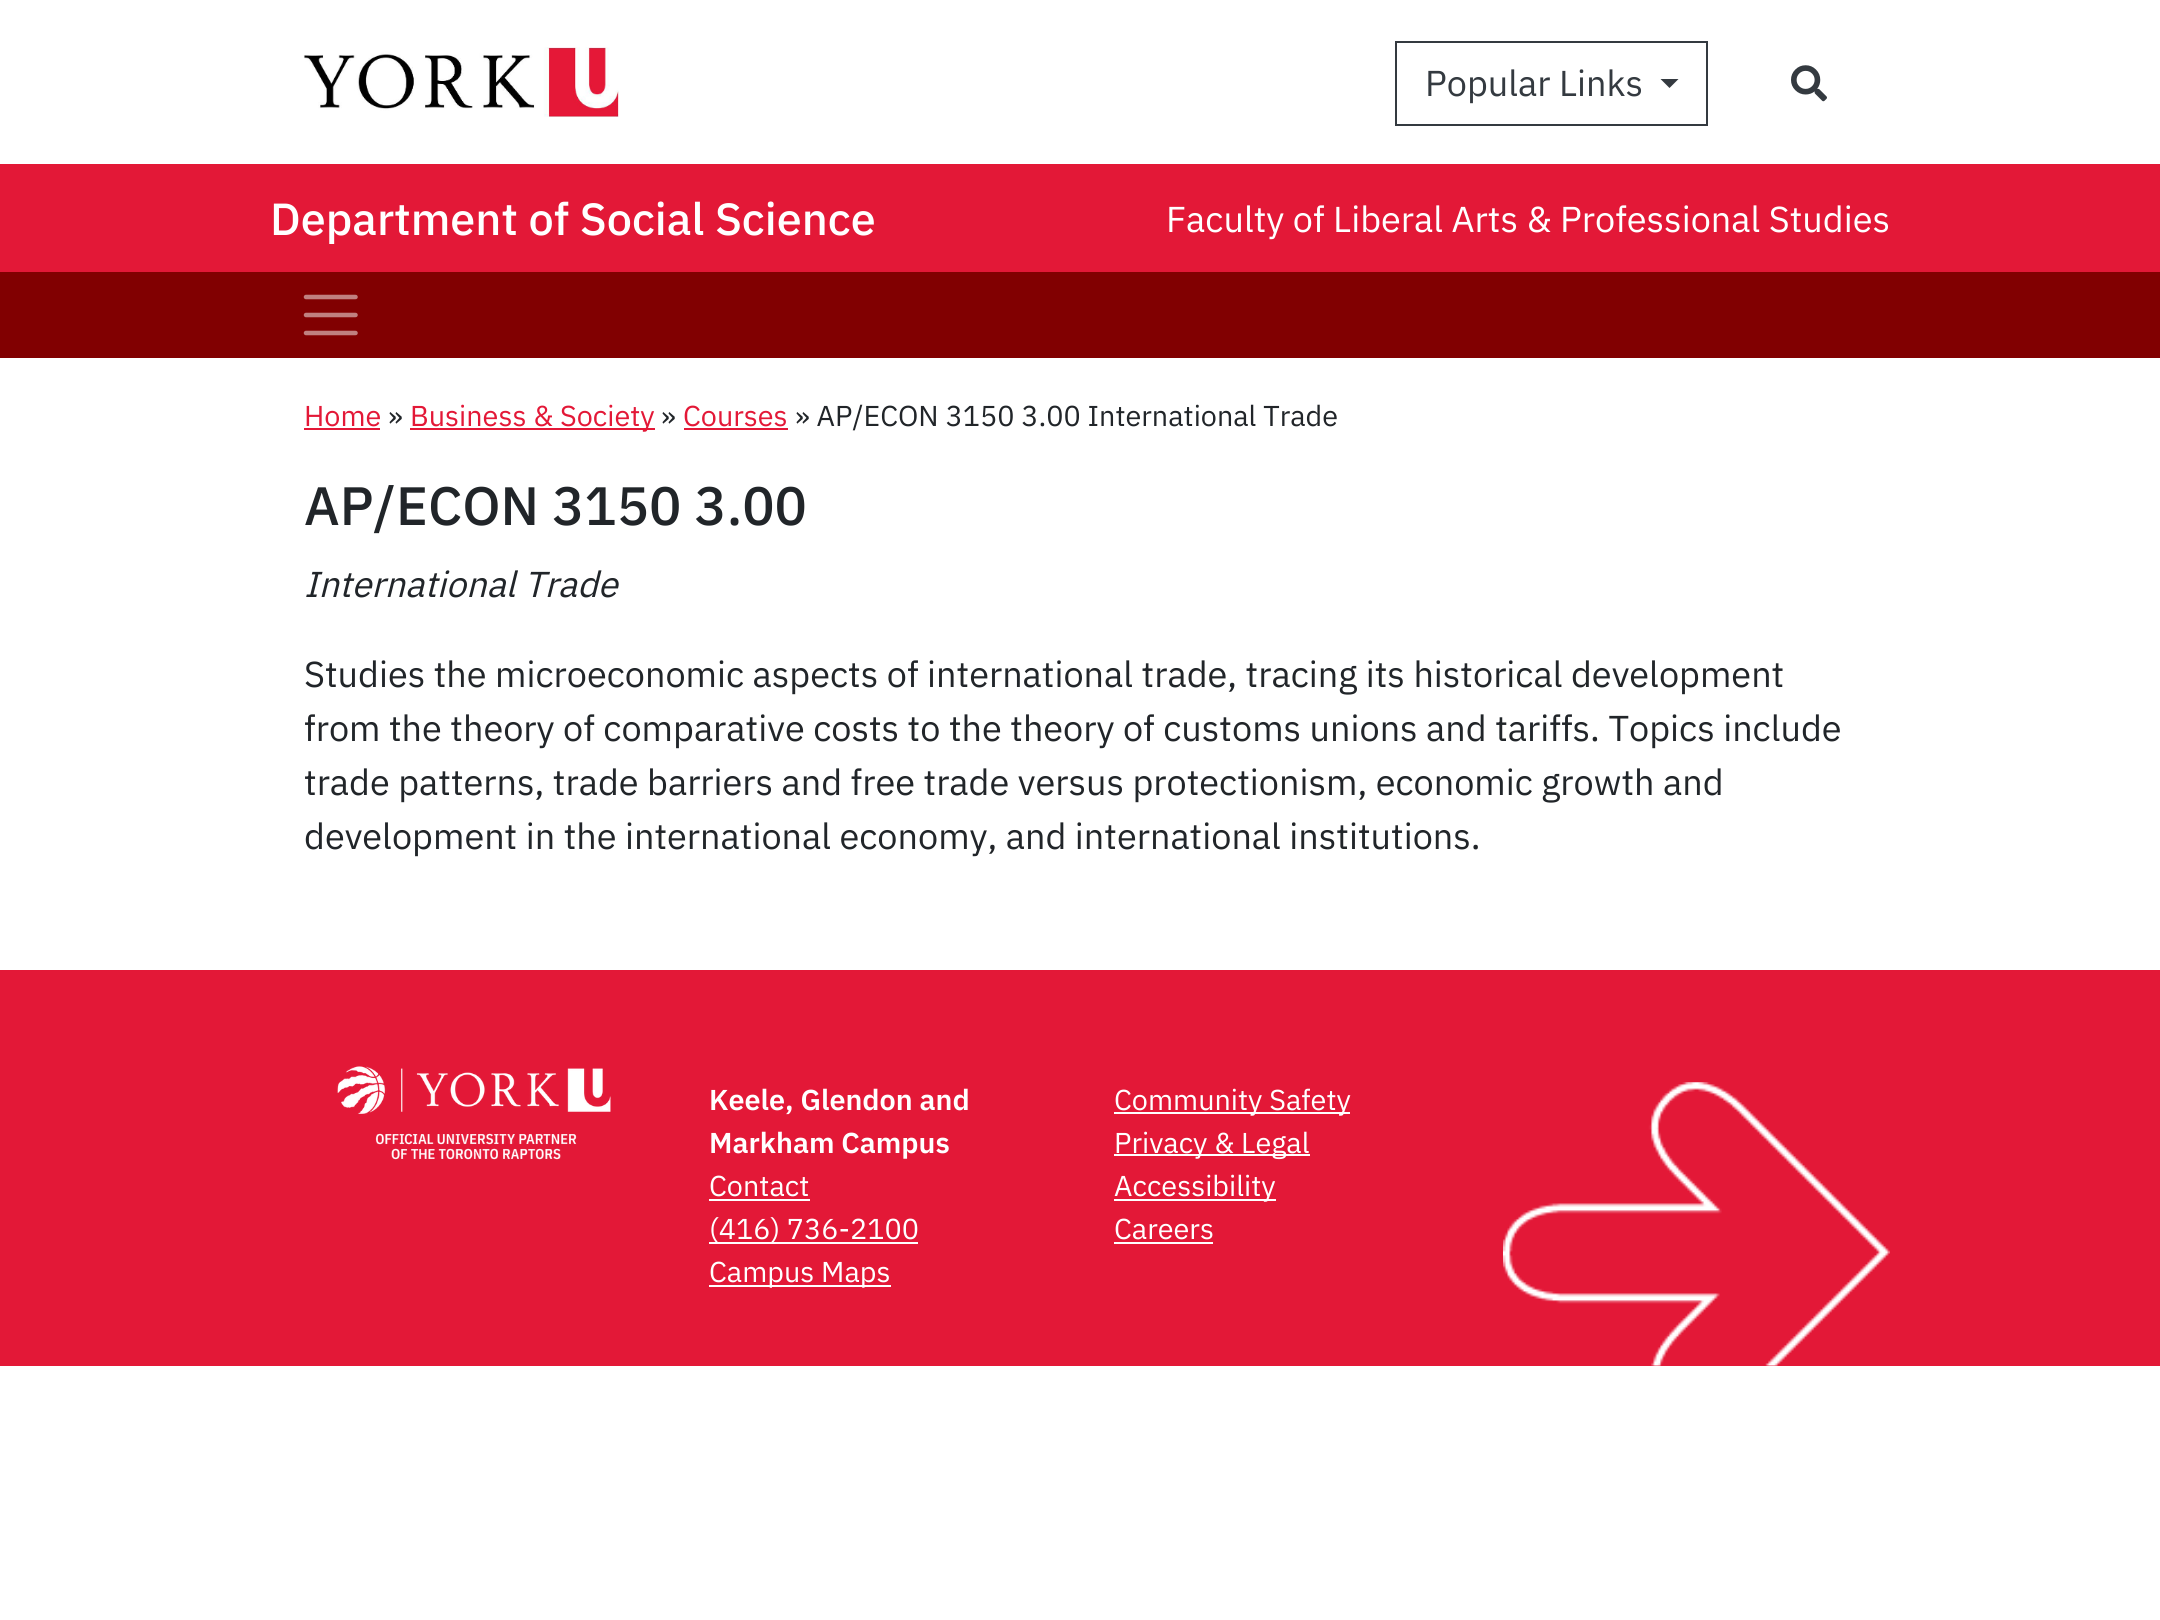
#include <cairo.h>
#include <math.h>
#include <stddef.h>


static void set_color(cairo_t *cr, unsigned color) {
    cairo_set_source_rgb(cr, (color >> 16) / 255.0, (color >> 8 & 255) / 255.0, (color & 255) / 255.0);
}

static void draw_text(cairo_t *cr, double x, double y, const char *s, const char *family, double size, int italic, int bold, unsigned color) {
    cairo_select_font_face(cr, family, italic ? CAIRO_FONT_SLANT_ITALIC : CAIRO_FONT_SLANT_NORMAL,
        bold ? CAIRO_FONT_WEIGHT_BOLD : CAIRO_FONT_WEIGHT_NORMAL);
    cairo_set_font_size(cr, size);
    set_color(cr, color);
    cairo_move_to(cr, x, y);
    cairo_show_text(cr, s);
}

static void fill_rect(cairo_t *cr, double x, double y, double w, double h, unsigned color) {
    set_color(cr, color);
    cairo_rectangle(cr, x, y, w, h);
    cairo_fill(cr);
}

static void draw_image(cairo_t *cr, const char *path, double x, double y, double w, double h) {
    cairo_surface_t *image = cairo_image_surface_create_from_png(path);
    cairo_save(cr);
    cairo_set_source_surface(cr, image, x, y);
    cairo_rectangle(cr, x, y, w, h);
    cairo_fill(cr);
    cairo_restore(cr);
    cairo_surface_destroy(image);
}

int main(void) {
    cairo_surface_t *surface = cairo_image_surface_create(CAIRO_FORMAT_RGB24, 2160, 1620);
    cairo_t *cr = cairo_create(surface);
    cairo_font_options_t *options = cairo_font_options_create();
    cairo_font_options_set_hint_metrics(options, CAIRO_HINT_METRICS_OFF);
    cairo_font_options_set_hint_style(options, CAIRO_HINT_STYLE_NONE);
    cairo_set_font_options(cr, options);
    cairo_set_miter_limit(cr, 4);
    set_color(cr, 0xFFFFFF);
    cairo_paint(cr);
    draw_image(cr, "assets/img1.png", 303, 47, 316, 70);
    cairo_rectangle(cr, 1396, 42, 311, 83);
    set_color(cr, 0x343A40);
    cairo_stroke(cr);
    draw_text(cr, 1425, 96, "Popular Links", "IBM Plex Sans", 36, 0, 0, 0x343A40);
    cairo_new_path(cr);
    cairo_move_to(cr, 1660.5, 79);
    cairo_line_to(cr, 1678.5, 79);
    cairo_line_to(cr, 1669.5, 88);
    cairo_close_path(cr);
    cairo_fill(cr);
    draw_image(cr, "assets/img2.png", 1791, 65, 36, 37);
    fill_rect(cr, 0, 164, 2160, 108, 0xE31837);
    draw_text(cr, 270, 235, "Department of Social Science", "IBM Plex Sans Medium", 45, 0, 0, 0xFFFFFF);
    draw_text(cr, 1166, 232, "Faculty of Liberal Arts & Professional Studies", "IBM Plex Sans", 36, 0, 0, 0xFFFFFF);
    fill_rect(cr, 0, 272, 2160, 86, 0x810001);
    cairo_new_path(cr);
    cairo_move_to(cr, 306, 297);
    cairo_line_to(cr, 355.5, 297);
    cairo_move_to(cr, 306, 315);
    cairo_line_to(cr, 355.5, 315);
    cairo_move_to(cr, 306, 333);
    cairo_line_to(cr, 355.5, 333);
    set_color(cr, 0xC08080);
    cairo_set_line_width(cr, 4.5);
    cairo_set_line_cap(cr, CAIRO_LINE_CAP_ROUND);
    cairo_stroke(cr);
    draw_text(cr, 304, 426, "Home", "IBM Plex Sans", 28.75, 0, 0, 0xE31837);
    fill_rect(cr, 304, 428, 76, 2, 0xE31837);
    draw_text(cr, 388, 426, "»", "IBM Plex Sans", 28.75, 0, 0, 0x212529);
    fill_rect(cr, 410, 428, 245, 2, 0xE31837);
    draw_text(cr, 410, 426, "Business & Society", "IBM Plex Sans", 28.75, 0, 0, 0xE31837);
    draw_text(cr, 661, 426, "»", "IBM Plex Sans", 28.75, 0, 0, 0x212529);
    draw_text(cr, 683, 426, "Courses", "IBM Plex Sans", 28.75, 0, 0, 0xE31837);
    fill_rect(cr, 684, 428, 104, 2, 0xE31837);
    draw_text(cr, 795, 426, "» AP/ECON 3150 3.00 International Trade", "IBM Plex Sans", 28.75, 0, 0, 0x212529);
    draw_text(cr, 304, 525, "AP/ECON 3150 3.00", "IBM Plex Sans Medium", 54, 0, 0, 0x212529);
    draw_text(cr, 304, 597, "International Trade", "IBM Plex Sans", 36, 1, 0, 0x212529);
    draw_text(cr, 304, 687, "Studies the microeconomic aspects of international trade, tracing its historical development", "IBM Plex Sans", 36, 0, 0, 0x212529);
    draw_text(cr, 304, 741, "from the theory of comparative costs to the theory of customs unions and tariffs. Topics include", "IBM Plex Sans", 36, 0, 0, 0x212529);
    draw_text(cr, 304, 795, "trade patterns, trade barriers and free trade versus protectionism, economic growth and", "IBM Plex Sans", 36, 0, 0, 0x212529);
    draw_text(cr, 304, 849, "development in the international economy, and international institutions.", "IBM Plex Sans", 36, 0, 0, 0x212529);
    fill_rect(cr, 0, 970, 2160, 396, 0xE31837);
    draw_image(cr, "assets/img3.png", 1503, 1082, 387, 284);
    draw_image(cr, "assets/img4.png", 336, 1066, 275, 94);
    draw_text(cr, 709, 1110, "Keele, Glendon and", "IBM Plex Sans SemiBold", 28.75, 0, 0, 0xFFFFFF);
    draw_text(cr, 709, 1153, "Markham Campus", "IBM Plex Sans SemiBold", 28.75, 0, 0, 0xFFFFFF);
    draw_text(cr, 709, 1196, "Contact", "IBM Plex Sans", 28.75, 0, 0, 0xFFFFFF);
    fill_rect(cr, 709, 1199, 101, 2, 0xFFFFFF);
    fill_rect(cr, 709, 1242, 209, 2, 0xFFFFFF);
    draw_text(cr, 709, 1239, "(416) 736-2100", "IBM Plex Sans", 28.75, 0, 0, 0xFFFFFF);
    fill_rect(cr, 709, 1285, 182, 2, 0xFFFFFF);
    draw_text(cr, 709, 1282, "Campus Maps", "IBM Plex Sans", 28.75, 0, 0, 0xFFFFFF);
    fill_rect(cr, 1114, 1112, 236, 2, 0xFFFFFF);
    draw_text(cr, 1114, 1110, "Community Safety", "IBM Plex Sans", 28.75, 0, 0, 0xFFFFFF);
    fill_rect(cr, 1114, 1154, 196, 2, 0xFFFFFF);
    draw_text(cr, 1114, 1153, "Privacy & Legal", "IBM Plex Sans", 28.75, 0, 0, 0xFFFFFF);
    fill_rect(cr, 1114, 1199, 162, 2, 0xFFFFFF);
    draw_text(cr, 1114, 1196, "Accessibility", "IBM Plex Sans", 28.75, 0, 0, 0xFFFFFF);
    draw_text(cr, 1114, 1239, "Careers", "IBM Plex Sans", 28.75, 0, 0, 0xFFFFFF);
    fill_rect(cr, 1114, 1242, 99, 2, 0xFFFFFF);
    cairo_surface_write_to_png(surface, "output.png");
    cairo_font_options_destroy(options);
    cairo_destroy(cr);
    cairo_surface_destroy(surface);
    return 0;
}
